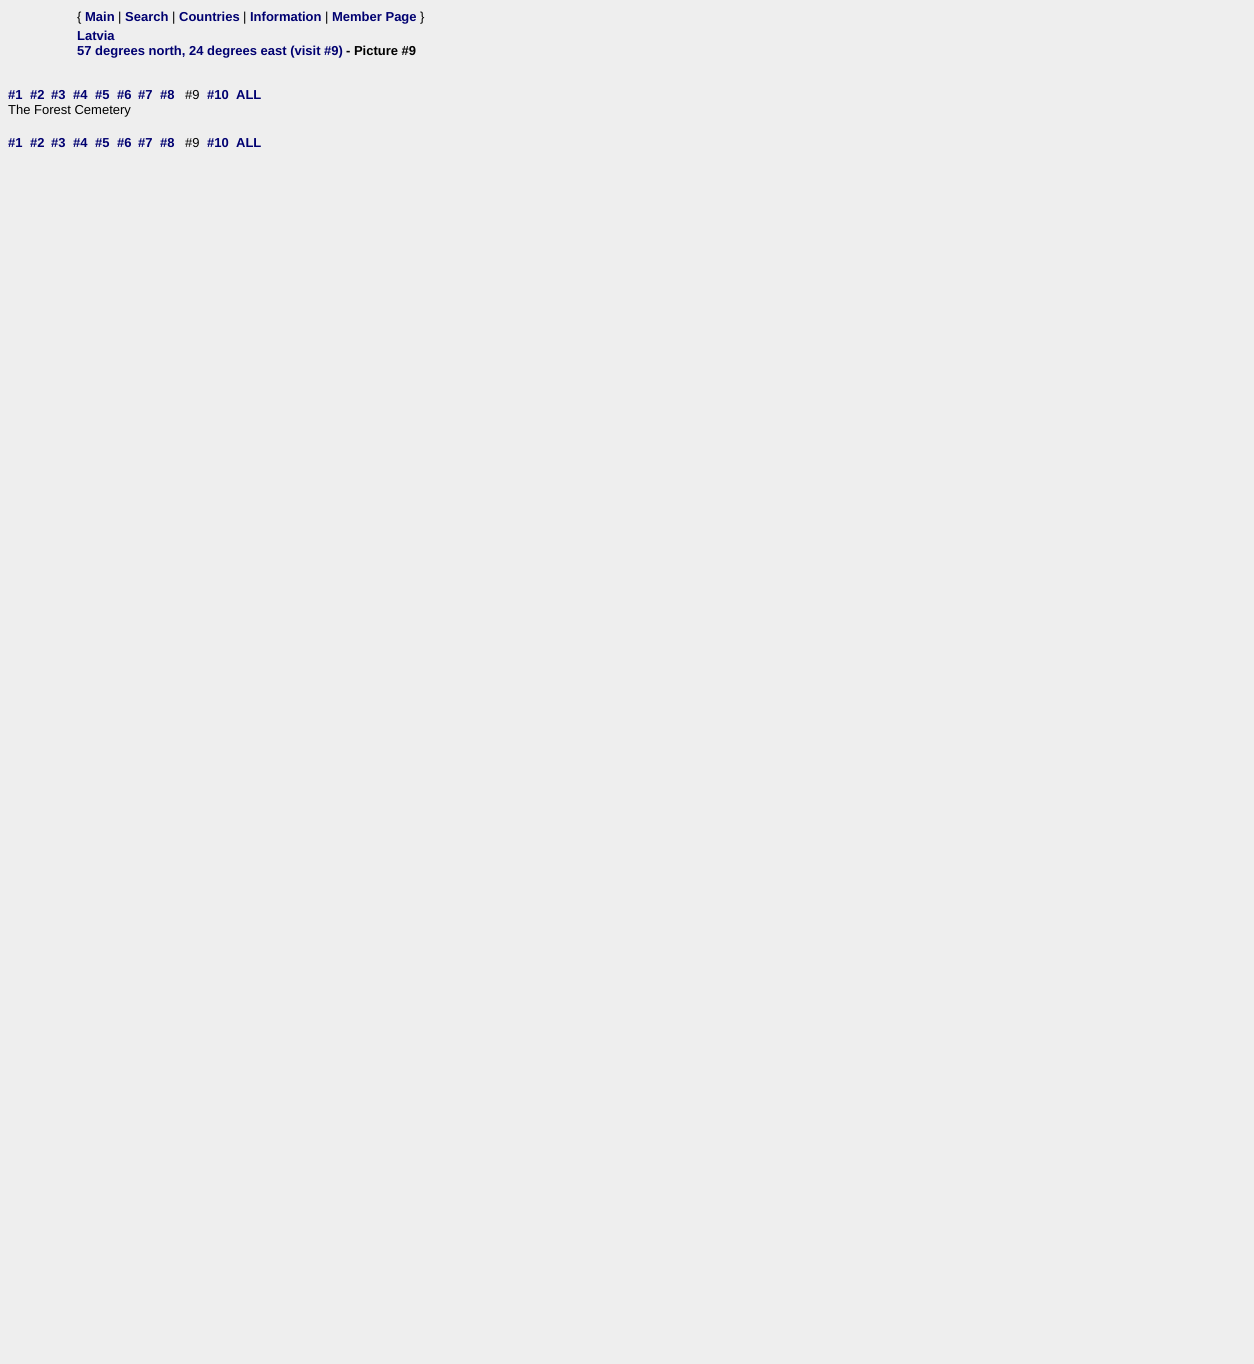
#include <cairo.h>
#include <math.h>
#include <stddef.h>


static void set_color(cairo_t *cr, unsigned color) {
    cairo_set_source_rgb(cr, (color >> 16) / 255.0, (color >> 8 & 255) / 255.0, (color & 255) / 255.0);
}

static void draw_text(cairo_t *cr, double x, double y, const char *s, const char *family, double size, int italic, int bold, unsigned color) {
    cairo_select_font_face(cr, family, italic ? CAIRO_FONT_SLANT_ITALIC : CAIRO_FONT_SLANT_NORMAL,
        bold ? CAIRO_FONT_WEIGHT_BOLD : CAIRO_FONT_WEIGHT_NORMAL);
    cairo_set_font_size(cr, size);
    set_color(cr, color);
    cairo_move_to(cr, x, y);
    cairo_show_text(cr, s);
}

int main(void) {
    cairo_surface_t *surface = cairo_image_surface_create(CAIRO_FORMAT_RGB24, 1254, 1364);
    cairo_t *cr = cairo_create(surface);
    cairo_font_options_t *options = cairo_font_options_create();
    cairo_font_options_set_hint_metrics(options, CAIRO_HINT_METRICS_OFF);
    cairo_font_options_set_hint_style(options, CAIRO_HINT_STYLE_NONE);
    cairo_set_font_options(cr, options);
    cairo_set_miter_limit(cr, 4);
    set_color(cr, 0xEEEEEE);
    cairo_paint(cr);
    draw_text(cr, 77, 21, "{", "Liberation Sans", 13, 0, 0, 0x000000);
    draw_text(cr, 85, 21, "Main", "Liberation Sans", 13, 0, 1, 0x000070);
    draw_text(cr, 118, 21, "|", "Liberation Sans", 13, 0, 0, 0x000000);
    draw_text(cr, 125, 21, "Search", "Liberation Sans", 13, 0, 1, 0x000070);
    draw_text(cr, 172, 21, "|", "Liberation Sans", 13, 0, 0, 0x000000);
    draw_text(cr, 179, 21, "Countries", "Liberation Sans", 13, 0, 1, 0x000070);
    draw_text(cr, 243, 21, "|", "Liberation Sans", 13, 0, 0, 0x000000);
    draw_text(cr, 250, 21, "Information", "Liberation Sans", 13, 0, 1, 0x000070);
    draw_text(cr, 325, 21, "|", "Liberation Sans", 13, 0, 0, 0x000000);
    draw_text(cr, 332, 21, "Member Page", "Liberation Sans", 13, 0, 1, 0x000070);
    draw_text(cr, 420, 21, "}", "Liberation Sans", 13, 0, 0, 0x000000);
    draw_text(cr, 77, 40, "Latvia", "Liberation Sans", 13, 0, 1, 0x000070);
    draw_text(cr, 77, 55, "57 degrees north, 24 degrees east (visit #9)", "Liberation Sans", 13, 0, 1, 0x000070);
    draw_text(cr, 346, 55, "- Picture #9", "Liberation Sans", 13, 0, 1, 0x000000);
    draw_text(cr, 8, 99, "#1", "Liberation Sans", 13, 0, 1, 0x000070);
    draw_text(cr, 30, 99, "#2", "Liberation Sans", 13, 0, 1, 0x000070);
    draw_text(cr, 51, 99, "#3", "Liberation Sans", 13, 0, 1, 0x000070);
    draw_text(cr, 73, 99, "#4", "Liberation Sans", 13, 0, 1, 0x000070);
    draw_text(cr, 95, 99, "#5", "Liberation Sans", 13, 0, 1, 0x000070);
    draw_text(cr, 117, 99, "#6", "Liberation Sans", 13, 0, 1, 0x000070);
    draw_text(cr, 138, 99, "#7", "Liberation Sans", 13, 0, 1, 0x000070);
    draw_text(cr, 160, 99, "#8", "Liberation Sans", 13, 0, 1, 0x000070);
    draw_text(cr, 185, 99, "#9", "Liberation Sans", 13, 0, 0, 0x000000);
    draw_text(cr, 207, 99, "#10", "Liberation Sans", 13, 0, 1, 0x000070);
    draw_text(cr, 236, 99, "ALL", "Liberation Sans", 13, 0, 1, 0x000070);
    draw_text(cr, 8, 114, "The Forest Cemetery", "Liberation Sans", 13, 0, 0, 0x000000);
    draw_text(cr, 8, 147, "#1", "Liberation Sans", 13, 0, 1, 0x000070);
    draw_text(cr, 30, 147, "#2", "Liberation Sans", 13, 0, 1, 0x000070);
    draw_text(cr, 51, 147, "#3", "Liberation Sans", 13, 0, 1, 0x000070);
    draw_text(cr, 73, 147, "#4", "Liberation Sans", 13, 0, 1, 0x000070);
    draw_text(cr, 95, 147, "#5", "Liberation Sans", 13, 0, 1, 0x000070);
    draw_text(cr, 117, 147, "#6", "Liberation Sans", 13, 0, 1, 0x000070);
    draw_text(cr, 138, 147, "#7", "Liberation Sans", 13, 0, 1, 0x000070);
    draw_text(cr, 160, 147, "#8", "Liberation Sans", 13, 0, 1, 0x000070);
    draw_text(cr, 185, 147, "#9", "Liberation Sans", 13, 0, 0, 0x000000);
    draw_text(cr, 207, 147, "#10", "Liberation Sans", 13, 0, 1, 0x000070);
    draw_text(cr, 236, 147, "ALL", "Liberation Sans", 13, 0, 1, 0x000070);
    cairo_surface_write_to_png(surface, "output.png");
    cairo_font_options_destroy(options);
    cairo_destroy(cr);
    cairo_surface_destroy(surface);
    return 0;
}
